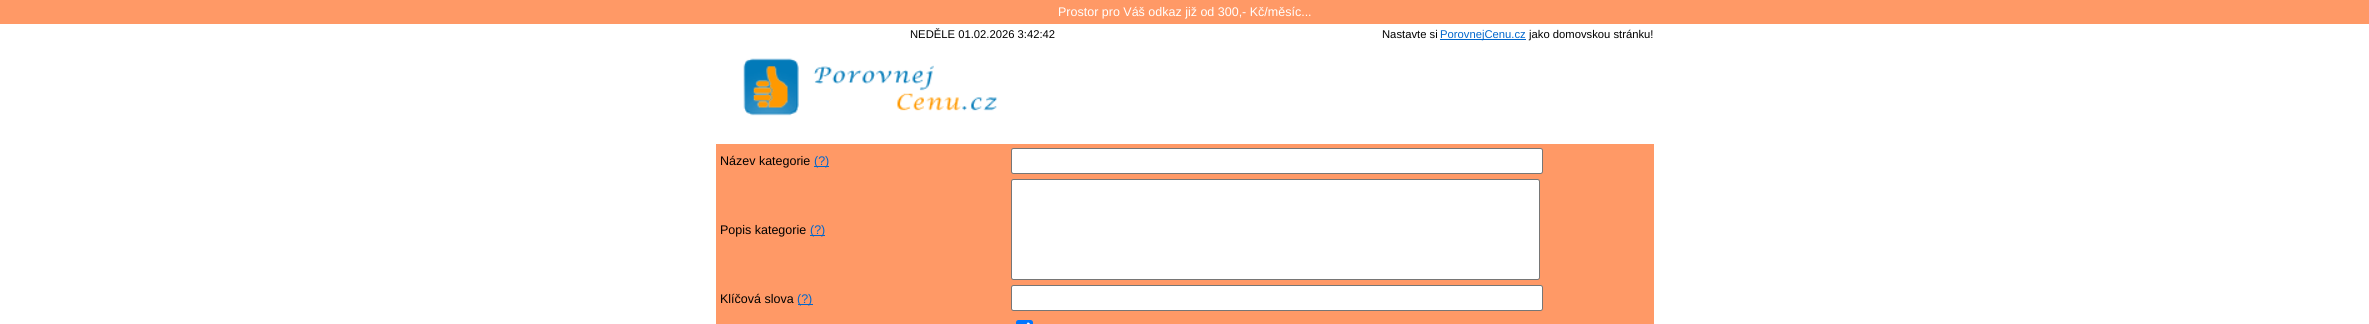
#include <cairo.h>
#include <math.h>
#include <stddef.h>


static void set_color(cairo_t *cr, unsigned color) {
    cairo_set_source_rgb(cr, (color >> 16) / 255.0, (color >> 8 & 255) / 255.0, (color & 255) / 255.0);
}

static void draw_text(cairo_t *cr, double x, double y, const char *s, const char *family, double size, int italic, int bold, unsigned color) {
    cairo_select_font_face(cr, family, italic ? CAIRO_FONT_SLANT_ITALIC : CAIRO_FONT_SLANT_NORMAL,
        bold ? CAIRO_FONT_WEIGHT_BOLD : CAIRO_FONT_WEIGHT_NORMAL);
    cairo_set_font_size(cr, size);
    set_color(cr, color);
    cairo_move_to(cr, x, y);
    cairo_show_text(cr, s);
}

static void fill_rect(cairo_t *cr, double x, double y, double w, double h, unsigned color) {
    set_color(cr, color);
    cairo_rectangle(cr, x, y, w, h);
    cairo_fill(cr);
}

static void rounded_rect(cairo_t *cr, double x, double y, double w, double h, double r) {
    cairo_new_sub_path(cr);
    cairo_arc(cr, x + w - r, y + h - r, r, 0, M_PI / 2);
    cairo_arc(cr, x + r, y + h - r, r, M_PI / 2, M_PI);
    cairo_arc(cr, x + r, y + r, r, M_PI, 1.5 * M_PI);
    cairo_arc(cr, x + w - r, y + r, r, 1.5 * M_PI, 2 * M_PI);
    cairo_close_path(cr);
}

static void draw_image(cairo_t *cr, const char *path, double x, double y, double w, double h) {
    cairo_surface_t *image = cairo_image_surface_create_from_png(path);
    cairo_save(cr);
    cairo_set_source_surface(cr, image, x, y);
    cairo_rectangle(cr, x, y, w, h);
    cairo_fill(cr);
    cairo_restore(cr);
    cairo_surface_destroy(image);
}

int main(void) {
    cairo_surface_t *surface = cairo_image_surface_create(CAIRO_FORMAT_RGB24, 2369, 324);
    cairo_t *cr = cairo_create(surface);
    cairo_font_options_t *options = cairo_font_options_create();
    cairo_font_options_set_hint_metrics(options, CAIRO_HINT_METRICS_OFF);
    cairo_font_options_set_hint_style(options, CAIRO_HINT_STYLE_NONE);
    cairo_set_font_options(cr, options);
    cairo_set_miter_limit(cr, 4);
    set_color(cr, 0xFFFFFF);
    cairo_paint(cr);
    fill_rect(cr, 0, 0, 2369, 24, 0xFF9966);
    draw_text(cr, 1058, 16, "Prostor pro Váš odkaz již od 300,- Kč/měsíc...", "Liberation Sans", 12.5, 0, 0, 0xFFFFFF);
    draw_text(cr, 910, 38, "NEDĚLE 01.02.2026 3:42:42", "Liberation Sans", 11.25, 0, 0, 0x000000);
    draw_text(cr, 1382, 38, "Nastavte si", "Liberation Sans", 11.25, 0, 0, 0x000000);
    fill_rect(cr, 1440, 39, 86, 1, 0x0066CC);
    draw_text(cr, 1440, 38, "PorovnejCenu.cz", "Liberation Sans", 11.25, 0, 0, 0x0066CC);
    draw_text(cr, 1529, 38, "jako domovskou stránku!", "Liberation Sans", 11.25, 0, 0, 0x000000);
    draw_image(cr, "assets/img1.png", 743, 58, 255, 58);
    fill_rect(cr, 716, 144, 938, 180, 0xFF9966);
    draw_text(cr, 720, 165, "Název kategorie", "Liberation Sans", 12.5, 0, 0, 0x000000);
    fill_rect(cr, 814, 166, 15, 1, 0x0066CC);
    draw_text(cr, 814, 165, "(?)", "Liberation Sans", 12.5, 0, 0, 0x0066CC);
    set_color(cr, 0xFFFFFF);
    rounded_rect(cr, 1011.5, 148.5, 531, 25, 2);
    cairo_fill_preserve(cr);
    set_color(cr, 0x767676);
    cairo_set_line_width(cr, 1);
    cairo_stroke(cr);
    draw_text(cr, 720, 234, "Popis kategorie", "Liberation Sans", 12.5, 0, 0, 0x000000);
    fill_rect(cr, 810, 235, 15, 1, 0x0066CC);
    draw_text(cr, 810, 234, "(?)", "Liberation Sans", 12.5, 0, 0, 0x0066CC);
    set_color(cr, 0xFFFFFF);
    rounded_rect(cr, 1011.5, 179.5, 528, 100, 2);
    cairo_fill_preserve(cr);
    set_color(cr, 0x767676);
    cairo_stroke(cr);
    draw_text(cr, 720, 303, "Klíčová slova", "Liberation Sans", 12.5, 0, 0, 0x000000);
    fill_rect(cr, 798, 304, 15, 1, 0x0066CC);
    draw_text(cr, 797, 303, "(?)", "Liberation Sans", 12.5, 0, 0, 0x0066CC);
    set_color(cr, 0xFFFFFF);
    rounded_rect(cr, 1011.5, 285.5, 531, 25, 2);
    cairo_fill_preserve(cr);
    set_color(cr, 0x767676);
    cairo_stroke(cr);
    set_color(cr, 0x0075FF);
    rounded_rect(cr, 1016, 320, 17, 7, 2.5);
    cairo_fill(cr);
    cairo_new_path(cr);
    cairo_move_to(cr, 1019.5, 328);
    cairo_line_to(cr, 1023, 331.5);
    cairo_line_to(cr, 1029, 323);
    set_color(cr, 0xFFFFFF);
    cairo_set_line_width(cr, 2.6);
    cairo_stroke(cr);
    cairo_surface_write_to_png(surface, "output.png");
    cairo_font_options_destroy(options);
    cairo_destroy(cr);
    cairo_surface_destroy(surface);
    return 0;
}
